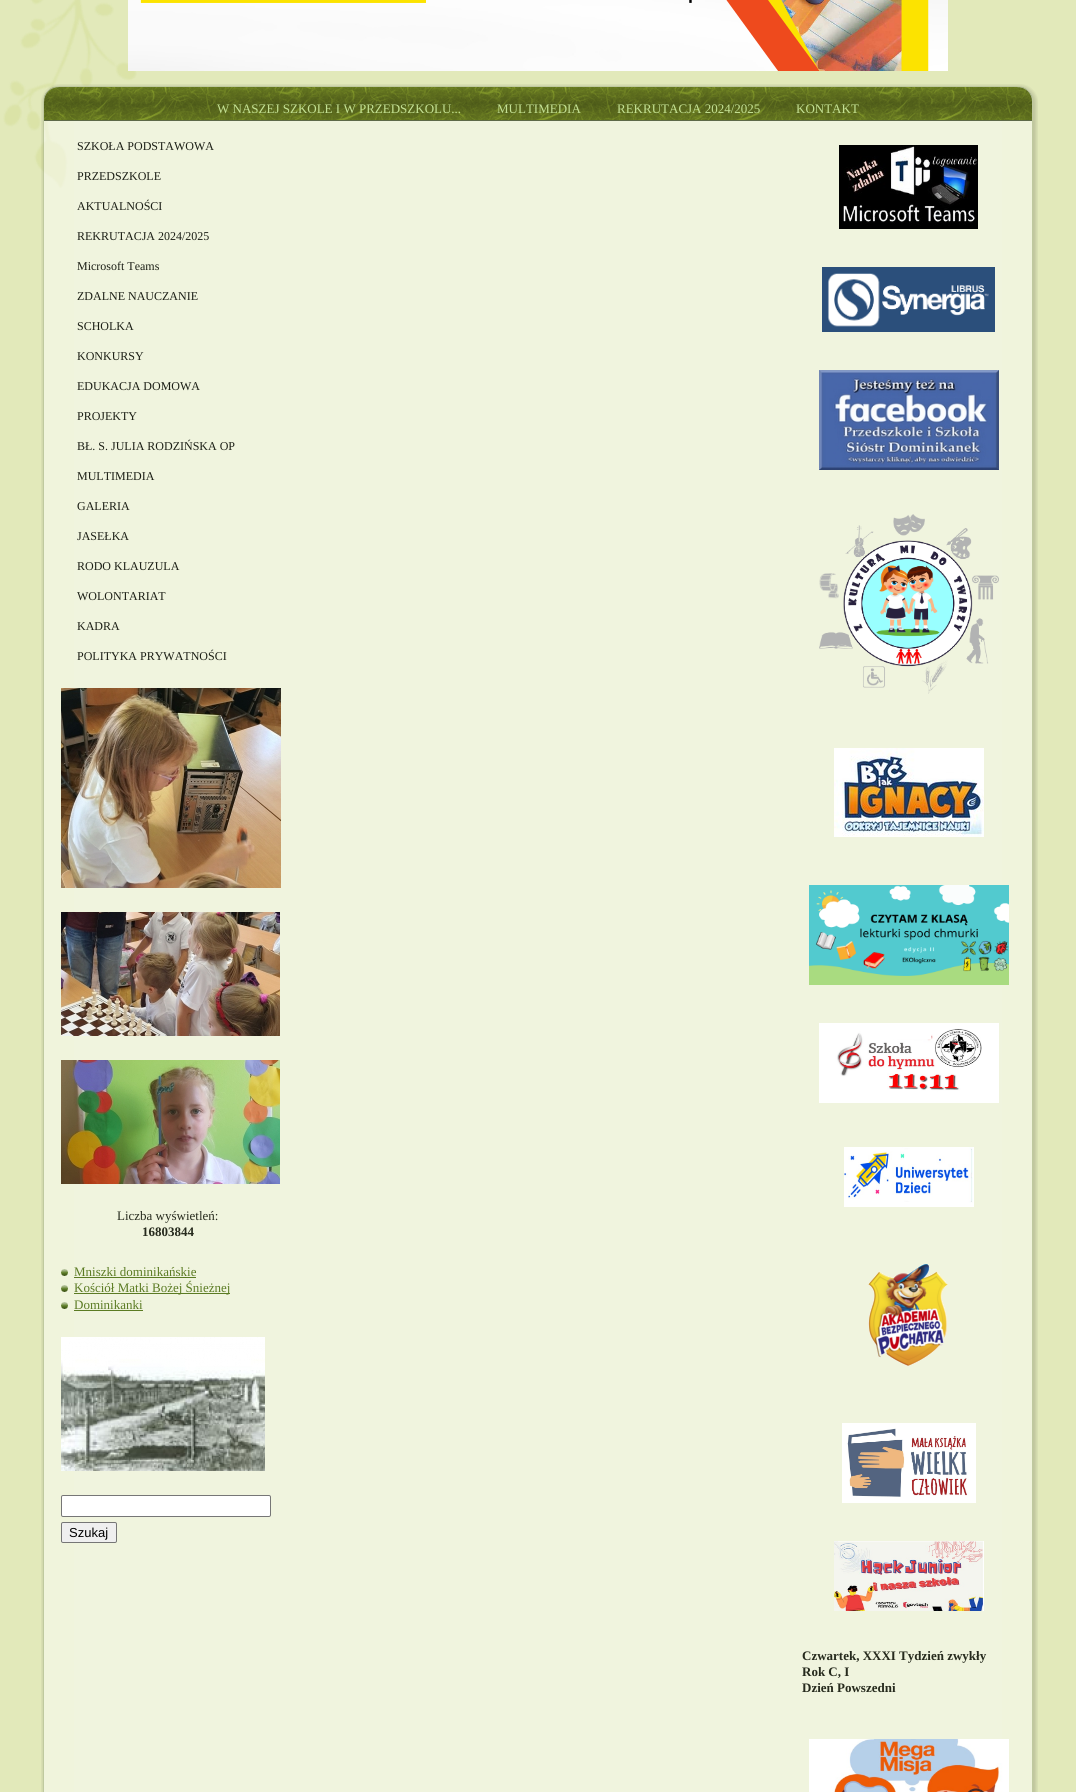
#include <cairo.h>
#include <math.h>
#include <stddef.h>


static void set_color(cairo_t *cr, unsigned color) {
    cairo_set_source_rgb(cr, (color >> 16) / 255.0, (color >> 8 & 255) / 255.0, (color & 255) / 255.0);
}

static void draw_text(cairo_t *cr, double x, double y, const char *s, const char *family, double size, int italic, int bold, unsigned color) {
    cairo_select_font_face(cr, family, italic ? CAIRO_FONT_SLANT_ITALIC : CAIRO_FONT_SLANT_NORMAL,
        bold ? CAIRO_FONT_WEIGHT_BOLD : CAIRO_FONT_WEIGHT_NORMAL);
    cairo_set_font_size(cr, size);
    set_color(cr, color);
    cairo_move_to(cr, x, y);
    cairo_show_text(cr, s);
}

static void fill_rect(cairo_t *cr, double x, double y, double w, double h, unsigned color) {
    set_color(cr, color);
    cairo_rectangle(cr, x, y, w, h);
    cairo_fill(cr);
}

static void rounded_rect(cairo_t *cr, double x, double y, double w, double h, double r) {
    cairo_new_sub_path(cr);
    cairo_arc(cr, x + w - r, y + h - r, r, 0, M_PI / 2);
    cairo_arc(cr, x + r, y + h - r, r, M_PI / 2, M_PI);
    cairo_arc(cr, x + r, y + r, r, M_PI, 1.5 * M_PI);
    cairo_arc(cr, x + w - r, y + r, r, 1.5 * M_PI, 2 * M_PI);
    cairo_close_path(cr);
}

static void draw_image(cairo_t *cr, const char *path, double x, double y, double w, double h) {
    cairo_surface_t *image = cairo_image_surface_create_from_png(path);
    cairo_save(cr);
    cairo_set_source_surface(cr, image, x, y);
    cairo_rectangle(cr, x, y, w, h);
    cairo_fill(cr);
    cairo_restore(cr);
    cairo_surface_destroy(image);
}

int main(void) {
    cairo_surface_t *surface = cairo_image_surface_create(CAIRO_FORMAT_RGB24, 1076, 1792);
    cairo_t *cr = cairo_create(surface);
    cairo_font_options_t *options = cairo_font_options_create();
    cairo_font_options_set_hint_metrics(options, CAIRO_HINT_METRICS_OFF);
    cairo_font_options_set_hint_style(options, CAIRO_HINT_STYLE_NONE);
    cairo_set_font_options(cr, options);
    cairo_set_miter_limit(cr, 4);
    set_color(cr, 0xE2E9BA);
    cairo_paint(cr);
    draw_image(cr, "assets/img1.png", 3, 0, 134, 188);
    draw_image(cr, "assets/img2.png", 128, 0, 820, 71);
    draw_image(cr, "assets/img3.png", 41, 84, 33, 33);
    draw_image(cr, "assets/img4.png", 74, 84, 928, 3);
    draw_image(cr, "assets/img5.png", 1002, 84, 36, 33);
    draw_image(cr, "assets/img6.png", 41, 117, 33, 1675);
    draw_image(cr, "assets/img26.png", 1002, 117, 36, 1675);
    draw_image(cr, "assets/img7.png", 44, 87, 973, 34);
    draw_image(cr, "assets/img8.png", 1017, 87, 15, 34);
    draw_text(cr, 217, 113, "W NASZEJ SZKOLE I W PRZEDSZKOLU...", "Liberation Serif", 13, 0, 0, 0xC4E194);
    draw_text(cr, 497, 113, "MULTIMEDIA", "Liberation Serif", 13, 0, 0, 0xC4E194);
    draw_text(cr, 617, 113, "REKRUTACJA 2024/2025", "Liberation Serif", 13, 0, 0, 0xC4E194);
    draw_text(cr, 796, 113, "KONTAKT", "Liberation Serif", 13, 0, 0, 0xC4E194);
    fill_rect(cr, 74, 121, 928, 1671, 0xF0F4DE);
    draw_text(cr, 77, 150, "SZKOŁA PODSTAWOWA", "Liberation Serif", 12, 0, 0, 0x1B1E15);
    draw_text(cr, 77, 180, "PRZEDSZKOLE", "Liberation Serif", 12, 0, 0, 0x1B1E15);
    draw_text(cr, 77, 210, "AKTUALNOŚCI", "Liberation Serif", 12, 0, 0, 0x1B1E15);
    draw_text(cr, 77, 240, "REKRUTACJA 2024/2025", "Liberation Serif", 12, 0, 0, 0x1B1E15);
    draw_text(cr, 77, 270, "Microsoft Teams", "Liberation Serif", 12, 0, 0, 0x1B1E15);
    draw_text(cr, 77, 300, "ZDALNE NAUCZANIE", "Liberation Serif", 12, 0, 0, 0x1B1E15);
    draw_text(cr, 77, 330, "SCHOLKA", "Liberation Serif", 12, 0, 0, 0x1B1E15);
    draw_text(cr, 77, 360, "KONKURSY", "Liberation Serif", 12, 0, 0, 0x1B1E15);
    draw_text(cr, 77, 390, "EDUKACJA DOMOWA", "Liberation Serif", 12, 0, 0, 0x1B1E15);
    draw_text(cr, 77, 420, "PROJEKTY", "Liberation Serif", 12, 0, 0, 0x1B1E15);
    draw_text(cr, 77, 450, "BŁ. S. JULIA RODZIŃSKA OP", "Liberation Serif", 12, 0, 0, 0x1B1E15);
    draw_text(cr, 77, 480, "MULTIMEDIA", "Liberation Serif", 12, 0, 0, 0x1B1E15);
    draw_text(cr, 77, 510, "GALERIA", "Liberation Serif", 12, 0, 0, 0x1B1E15);
    draw_text(cr, 77, 540, "JASEŁKA", "Liberation Serif", 12, 0, 0, 0x1B1E15);
    draw_text(cr, 77, 570, "RODO KLAUZULA", "Liberation Serif", 12, 0, 0, 0x1B1E15);
    draw_text(cr, 77, 600, "WOLONTARIAT", "Liberation Serif", 12, 0, 0, 0x1B1E15);
    draw_text(cr, 77, 630, "KADRA", "Liberation Serif", 12, 0, 0, 0x1B1E15);
    draw_text(cr, 77, 660, "POLITYKA PRYWATNOŚCI", "Liberation Serif", 12, 0, 0, 0x1B1E15);
    draw_image(cr, "assets/img9.png", 61, 688, 220, 200);
    draw_image(cr, "assets/img10.png", 61, 912, 219, 124);
    draw_image(cr, "assets/img11.png", 61, 1060, 219, 124);
    draw_text(cr, 117, 1220, "Liczba wyświetleń:", "Liberation Serif", 13, 0, 0, 0x262A1D);
    draw_text(cr, 142, 1236, "16803844", "Liberation Serif", 13, 0, 1, 0x262A1D);
    draw_image(cr, "assets/img12.png", 61, 1269, 7, 7);
    draw_text(cr, 74, 1276, "Mniszki dominikańskie", "Liberation Serif", 13, 0, 0, 0x5B7B23);
    fill_rect(cr, 74, 1277, 122, 1, 0x5B7B23);
    draw_image(cr, "assets/img12.png", 61, 1285, 7, 7);
    fill_rect(cr, 74, 1293, 156, 1, 0x5B7B23);
    draw_text(cr, 74, 1292, "Kościół Matki Bożej Śnieżnej", "Liberation Serif", 13, 0, 0, 0x5B7B23);
    draw_image(cr, "assets/img12.png", 61, 1302, 7, 7);
    draw_text(cr, 74, 1309, "Dominikanki", "Liberation Serif", 13, 0, 0, 0x5B7B23);
    fill_rect(cr, 74, 1310, 69, 1, 0x5B7B23);
    draw_image(cr, "assets/img13.png", 61, 1337, 204, 134);
    set_color(cr, 0xFFFFFF);
    rounded_rect(cr, 61.5, 1495.5, 209, 21, 1.5);
    cairo_fill_preserve(cr);
    set_color(cr, 0x767676);
    cairo_set_line_width(cr, 1);
    cairo_stroke(cr);
    set_color(cr, 0xEFEFEF);
    rounded_rect(cr, 61.5, 1522.5, 55, 20, 1.5);
    cairo_fill_preserve(cr);
    set_color(cr, 0x767676);
    cairo_stroke(cr);
    draw_text(cr, 69, 1537, "Szukaj", "Liberation Sans", 13, 0, 0, 0x000000);
    draw_image(cr, "assets/img14.png", 839, 145, 139, 84);
    draw_image(cr, "assets/img15.png", 822, 267, 173, 65);
    draw_image(cr, "assets/img16.png", 819, 370, 180, 100);
    draw_image(cr, "assets/img17.png", 819, 514, 180, 180);
    draw_image(cr, "assets/img18.png", 834, 748, 150, 89);
    draw_image(cr, "assets/img19.png", 809, 885, 200, 100);
    draw_image(cr, "assets/img20.png", 819, 1023, 180, 80);
    draw_image(cr, "assets/img21.png", 844, 1147, 130, 60);
    draw_image(cr, "assets/img22.png", 868, 1264, 80, 102);
    draw_image(cr, "assets/img23.png", 842, 1423, 134, 80);
    draw_image(cr, "assets/img24.png", 834, 1541, 150, 70);
    draw_text(cr, 802, 1660, "Czwartek, XXXI Tydzień zwykły", "Liberation Serif", 13, 0, 1, 0x262A1D);
    draw_text(cr, 802, 1676, "Rok C, I", "Liberation Serif", 13, 0, 1, 0x262A1D);
    draw_text(cr, 802, 1692, "Dzień Powszedni", "Liberation Serif", 13, 0, 1, 0x262A1D);
    draw_image(cr, "assets/img25.png", 809, 1739, 200, 53);
    cairo_surface_write_to_png(surface, "output.png");
    cairo_font_options_destroy(options);
    cairo_destroy(cr);
    cairo_surface_destroy(surface);
    return 0;
}
